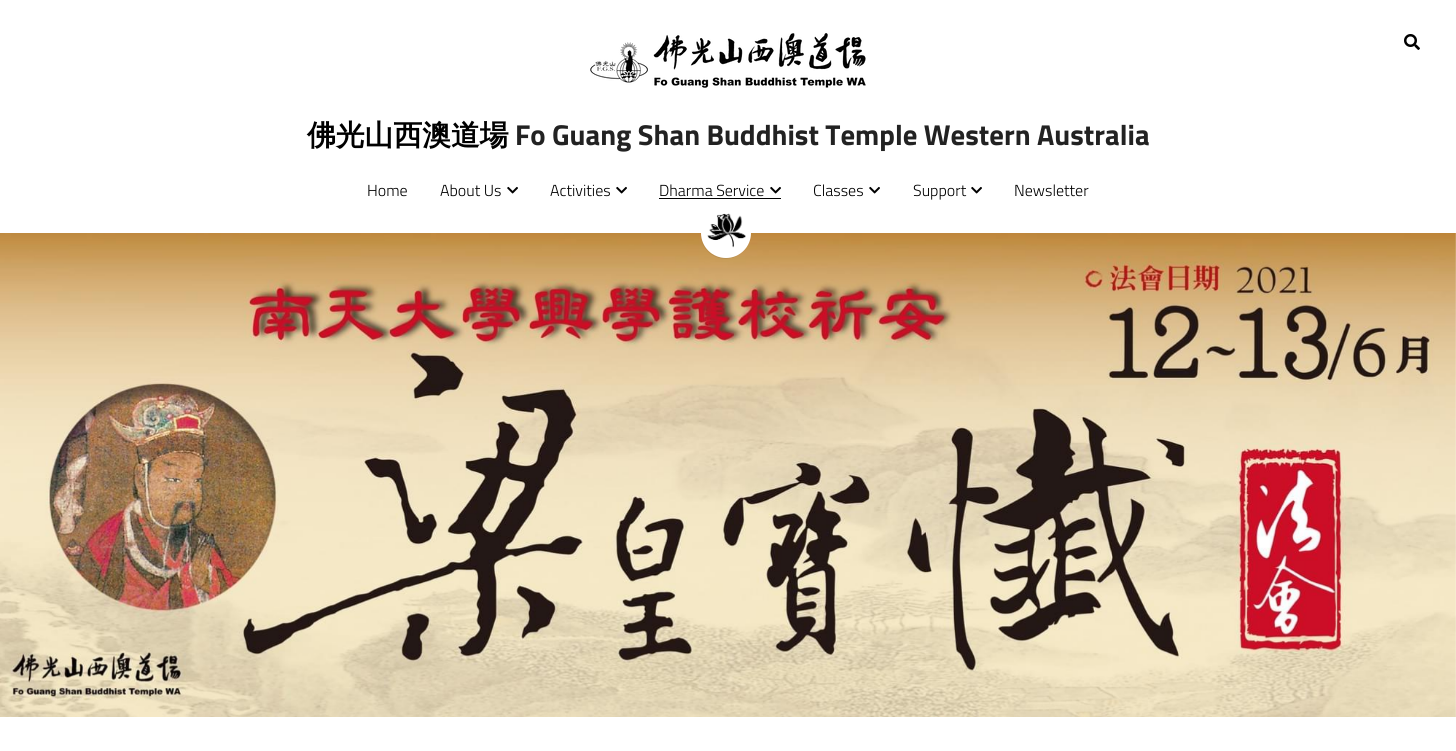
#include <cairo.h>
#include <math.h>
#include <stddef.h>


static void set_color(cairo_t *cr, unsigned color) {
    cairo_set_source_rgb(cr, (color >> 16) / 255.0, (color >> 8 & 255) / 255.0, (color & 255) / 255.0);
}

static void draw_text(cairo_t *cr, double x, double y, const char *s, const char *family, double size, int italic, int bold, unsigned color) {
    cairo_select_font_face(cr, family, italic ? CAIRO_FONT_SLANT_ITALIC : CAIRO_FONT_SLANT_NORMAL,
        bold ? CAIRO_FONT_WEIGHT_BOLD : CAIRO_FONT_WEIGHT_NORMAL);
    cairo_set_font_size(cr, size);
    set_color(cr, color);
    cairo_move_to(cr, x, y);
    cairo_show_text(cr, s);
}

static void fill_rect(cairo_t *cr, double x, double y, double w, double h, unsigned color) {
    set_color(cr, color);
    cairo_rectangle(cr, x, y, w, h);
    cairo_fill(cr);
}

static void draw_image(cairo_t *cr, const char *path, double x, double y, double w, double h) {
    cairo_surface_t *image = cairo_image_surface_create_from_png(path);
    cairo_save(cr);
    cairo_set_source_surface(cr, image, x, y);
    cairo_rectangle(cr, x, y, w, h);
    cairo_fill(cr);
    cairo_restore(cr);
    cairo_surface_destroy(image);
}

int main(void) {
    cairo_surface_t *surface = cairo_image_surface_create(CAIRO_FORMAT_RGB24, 1456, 751);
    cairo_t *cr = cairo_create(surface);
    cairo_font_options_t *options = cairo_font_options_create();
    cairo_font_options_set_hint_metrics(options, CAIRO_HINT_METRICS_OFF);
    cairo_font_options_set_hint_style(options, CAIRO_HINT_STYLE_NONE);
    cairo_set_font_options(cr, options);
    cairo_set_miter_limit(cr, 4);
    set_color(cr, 0xFFFFFF);
    cairo_paint(cr);
    draw_image(cr, "assets/img1.png", 590, 33, 276, 55);
    draw_text(cr, 307, 145, "佛光山西澳道場", "WenQuanYi Zen Hei", 28.8, 0, 1, 0x000000);
    draw_text(cr, 515, 145, "Fo Guang Shan Buddhist Temple Western Australia", "Titillium Web", 28.8, 0, 1, 0x222222);
    draw_image(cr, "assets/img2.png", 1404, 34, 16, 16);
    draw_text(cr, 367, 196, "Home", "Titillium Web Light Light", 16, 0, 0, 0x000000);
    draw_text(cr, 440, 196, "About Us", "Titillium Web Light Light", 16, 0, 0, 0x000000);
    draw_image(cr, "assets/img3.png", 507, 186, 11, 8);
    draw_text(cr, 550, 196, "Activities", "Titillium Web Light Light", 16, 0, 0, 0x000000);
    draw_image(cr, "assets/img3.png", 616, 186, 11, 8);
    fill_rect(cr, 659, 198, 122, 1, 0x000000);
    draw_text(cr, 659, 196, "Dharma Service", "Titillium Web Light Light", 16, 0, 0, 0x000000);
    draw_image(cr, "assets/img3.png", 770, 186, 11, 8);
    draw_text(cr, 813, 196, "Classes", "Titillium Web Light Light", 16, 0, 0, 0x000000);
    draw_image(cr, "assets/img3.png", 869, 186, 11, 8);
    draw_text(cr, 913, 196, "Support", "Titillium Web Light Light", 16, 0, 0, 0x000000);
    draw_image(cr, "assets/img3.png", 971, 186, 11, 8);
    draw_text(cr, 1014, 196, "Newsletter", "Titillium Web Light Light", 16, 0, 0, 0x000000);
    draw_image(cr, "assets/img5.png", 0, 233, 1456, 484);
    cairo_set_source_rgba(cr, 0, 0, 0, 0.12);
    cairo_new_path(cr);
    cairo_move_to(cr, 751, 234);
    cairo_curve_to(cr, 750, 266, 702, 266, 701, 234);
    cairo_curve_to(cr, 701, 239, 702, 244, 705, 248);
    cairo_curve_to(cr, 719, 268, 751, 258, 751, 234);
    cairo_close_path(cr);
    cairo_fill(cr);
    set_color(cr, 0xFFFFFF);
    cairo_arc(cr, 726, 233, 25, 0, 2 * M_PI);
    cairo_fill(cr);
    draw_image(cr, "assets/img4.png", 707, 213, 39, 35);
    cairo_surface_write_to_png(surface, "output.png");
    cairo_font_options_destroy(options);
    cairo_destroy(cr);
    cairo_surface_destroy(surface);
    return 0;
}
